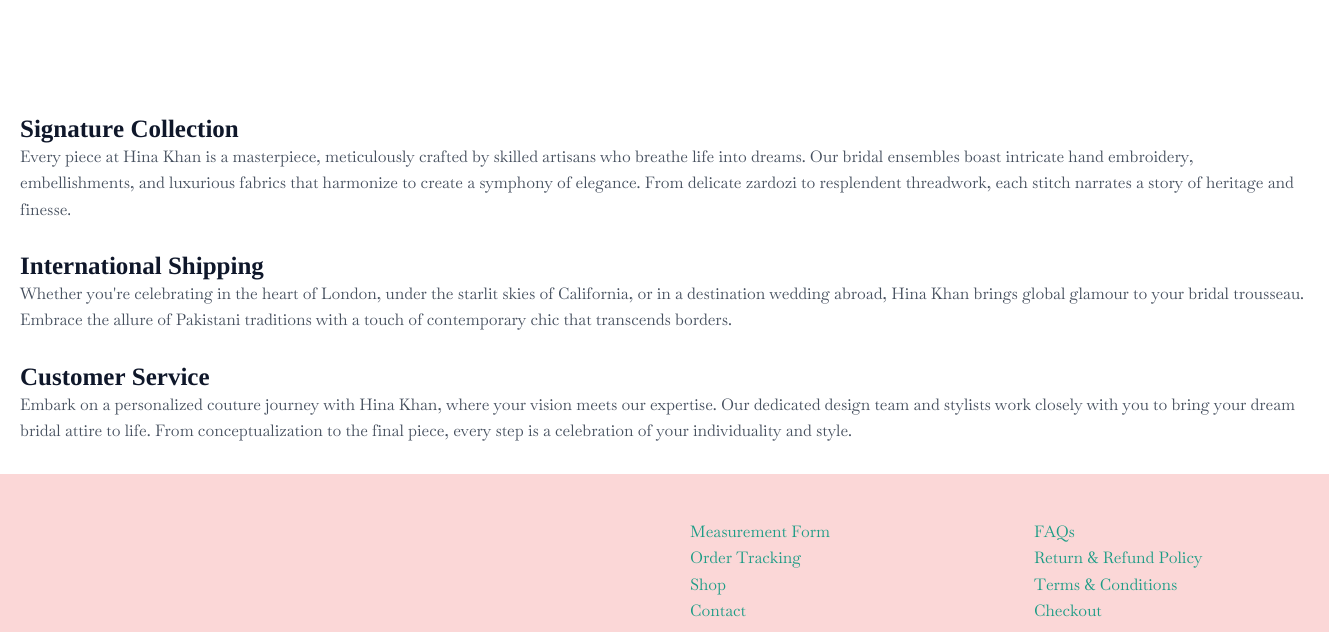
#include <cairo.h>
#include <math.h>
#include <stddef.h>


static void set_color(cairo_t *cr, unsigned color) {
    cairo_set_source_rgb(cr, (color >> 16) / 255.0, (color >> 8 & 255) / 255.0, (color & 255) / 255.0);
}

static void draw_text(cairo_t *cr, double x, double y, const char *s, const char *family, double size, int italic, int bold, unsigned color) {
    cairo_select_font_face(cr, family, italic ? CAIRO_FONT_SLANT_ITALIC : CAIRO_FONT_SLANT_NORMAL,
        bold ? CAIRO_FONT_WEIGHT_BOLD : CAIRO_FONT_WEIGHT_NORMAL);
    cairo_set_font_size(cr, size);
    set_color(cr, color);
    cairo_move_to(cr, x, y);
    cairo_show_text(cr, s);
}

static void fill_rect(cairo_t *cr, double x, double y, double w, double h, unsigned color) {
    set_color(cr, color);
    cairo_rectangle(cr, x, y, w, h);
    cairo_fill(cr);
}

int main(void) {
    cairo_surface_t *surface = cairo_image_surface_create(CAIRO_FORMAT_RGB24, 1329, 632);
    cairo_t *cr = cairo_create(surface);
    cairo_font_options_t *options = cairo_font_options_create();
    cairo_font_options_set_hint_metrics(options, CAIRO_HINT_METRICS_OFF);
    cairo_font_options_set_hint_style(options, CAIRO_HINT_STYLE_NONE);
    cairo_set_font_options(cr, options);
    cairo_set_miter_limit(cr, 4);
    set_color(cr, 0xFFFFFF);
    cairo_paint(cr);
    draw_text(cr, 20, 137, "Signature Collection", "Liberation Serif", 25, 0, 1, 0x0F172A);
    draw_text(cr, 20, 162, "Every piece at Hina Khan is a masterpiece, meticulously crafted by skilled artisans who breathe life into dreams. Our bridal ensembles boast intricate hand embroidery,", "Baskervville", 16, 0, 0, 0x454F5E);
    draw_text(cr, 20, 188, "embellishments, and luxurious fabrics that harmonize to create a symphony of elegance. From delicate zardozi to resplendent threadwork, each stitch narrates a story of heritage and", "Baskervville", 16, 0, 0, 0x454F5E);
    draw_text(cr, 20, 215, "finesse.", "Baskervville", 16, 0, 0, 0x454F5E);
    draw_text(cr, 20, 274, "International Shipping", "Liberation Serif", 25, 0, 1, 0x0F172A);
    draw_text(cr, 20, 299, "Whether you're celebrating in the heart of London, under the starlit skies of California, or in a destination wedding abroad, Hina Khan brings global glamour to your bridal trousseau.", "Baskervville", 16, 0, 0, 0x454F5E);
    draw_text(cr, 20, 325, "Embrace the allure of Pakistani traditions with a touch of contemporary chic that transcends borders.", "Baskervville", 16, 0, 0, 0x454F5E);
    draw_text(cr, 20, 385, "Customer Service", "Liberation Serif", 25, 0, 1, 0x0F172A);
    draw_text(cr, 20, 410, "Embark on a personalized couture journey with Hina Khan, where your vision meets our expertise. Our dedicated design team and stylists work closely with you to bring your dream", "Baskervville", 16, 0, 0, 0x454F5E);
    draw_text(cr, 20, 436, "bridal attire to life. From conceptualization to the final piece, every step is a celebration of your individuality and style.", "Baskervville", 16, 0, 0, 0x454F5E);
    fill_rect(cr, 0, 474, 1329, 158, 0xFBD7D7);
    draw_text(cr, 690, 537, "Measurement Form", "Baskervville", 16, 0, 0, 0x1B9C85);
    draw_text(cr, 690, 563, "Order Tracking", "Baskervville", 16, 0, 0, 0x1B9C85);
    draw_text(cr, 690, 590, "Shop", "Baskervville", 16, 0, 0, 0x1B9C85);
    draw_text(cr, 690, 616, "Contact", "Baskervville", 16, 0, 0, 0x1B9C85);
    draw_text(cr, 1034, 537, "FAQs", "Baskervville", 16, 0, 0, 0x1B9C85);
    draw_text(cr, 1034, 563, "Return & Refund Policy", "Baskervville", 16, 0, 0, 0x1B9C85);
    draw_text(cr, 1034, 590, "Terms & Conditions", "Baskervville", 16, 0, 0, 0x1B9C85);
    draw_text(cr, 1034, 616, "Checkout", "Baskervville", 16, 0, 0, 0x1B9C85);
    cairo_surface_write_to_png(surface, "output.png");
    cairo_font_options_destroy(options);
    cairo_destroy(cr);
    cairo_surface_destroy(surface);
    return 0;
}
